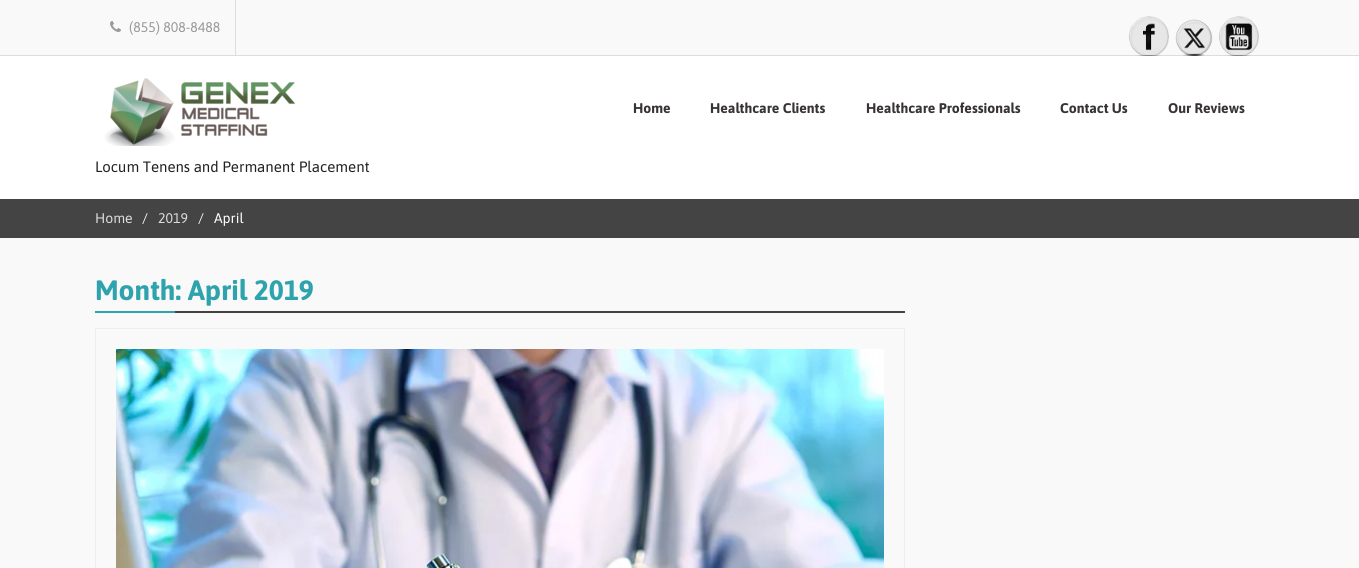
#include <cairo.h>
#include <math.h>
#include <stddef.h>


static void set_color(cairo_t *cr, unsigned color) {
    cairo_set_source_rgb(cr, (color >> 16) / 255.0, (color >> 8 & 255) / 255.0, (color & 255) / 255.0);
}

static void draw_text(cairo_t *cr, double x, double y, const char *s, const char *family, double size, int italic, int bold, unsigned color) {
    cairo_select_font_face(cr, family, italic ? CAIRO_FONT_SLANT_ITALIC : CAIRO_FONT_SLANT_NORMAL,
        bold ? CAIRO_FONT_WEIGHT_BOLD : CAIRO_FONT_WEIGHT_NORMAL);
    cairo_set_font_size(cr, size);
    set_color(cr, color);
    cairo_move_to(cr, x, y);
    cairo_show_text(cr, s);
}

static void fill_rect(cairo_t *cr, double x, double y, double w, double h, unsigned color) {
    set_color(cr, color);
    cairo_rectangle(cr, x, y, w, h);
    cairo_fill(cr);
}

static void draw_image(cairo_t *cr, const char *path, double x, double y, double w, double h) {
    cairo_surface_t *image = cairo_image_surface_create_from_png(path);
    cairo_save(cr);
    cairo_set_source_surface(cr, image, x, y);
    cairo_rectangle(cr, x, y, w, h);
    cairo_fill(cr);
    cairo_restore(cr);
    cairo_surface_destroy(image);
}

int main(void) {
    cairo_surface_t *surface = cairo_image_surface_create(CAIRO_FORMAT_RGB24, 1359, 568);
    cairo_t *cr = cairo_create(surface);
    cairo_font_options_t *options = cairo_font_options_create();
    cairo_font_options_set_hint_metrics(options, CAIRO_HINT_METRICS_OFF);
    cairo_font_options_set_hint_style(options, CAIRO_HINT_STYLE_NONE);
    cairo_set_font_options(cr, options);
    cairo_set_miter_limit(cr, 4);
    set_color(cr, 0xF9F9F9);
    cairo_paint(cr);
    fill_rect(cr, 0, 55, 1359, 1, 0xDDDDDD);
    draw_image(cr, "assets/img1.png", 1129, 16, 40, 40);
    draw_image(cr, "assets/img2.png", 1175, 19, 38, 37);
    draw_image(cr, "assets/img3.png", 1219, 16, 40, 40);
    fill_rect(cr, 235, 0, 1, 55, 0xDDDDDD);
    draw_image(cr, "assets/img4.png", 110, 21, 11, 11);
    draw_text(cr, 129, 32, "(855) 808-8488", "Asap", 14, 0, 0, 0x999999);
    fill_rect(cr, 0, 56, 1359, 143, 0xFFFFFF);
    draw_text(cr, 633, 113, "Home", "Asap", 14, 0, 1, 0x373433);
    draw_text(cr, 710, 113, "Healthcare Clients", "Asap", 14, 0, 1, 0x373433);
    draw_text(cr, 866, 113, "Healthcare Professionals", "Asap", 14, 0, 1, 0x373433);
    draw_text(cr, 1060, 113, "Contact Us", "Asap", 14, 0, 1, 0x373433);
    draw_text(cr, 1168, 113, "Our Reviews", "Asap", 14, 0, 1, 0x373433);
    draw_image(cr, "assets/img5.png", 104, 78, 192, 68);
    draw_text(cr, 95, 172, "Locum Tenens and Permanent Placement", "Asap", 15, 0, 0, 0x222222);
    fill_rect(cr, 0, 199, 1359, 39, 0x444444);
    draw_text(cr, 95, 223, "Home", "Asap", 14, 0, 0, 0xDDDDDD);
    draw_text(cr, 142, 223, "/", "Asap", 14, 0, 0, 0xFFFFFF);
    draw_text(cr, 158, 223, "2019", "Asap", 14, 0, 0, 0xDDDDDD);
    draw_text(cr, 198, 223, "/", "Asap", 14, 0, 0, 0xFFFFFF);
    draw_text(cr, 214, 223, "April", "Asap", 14, 0, 0, 0xFFFFFF);
    draw_text(cr, 95, 300, "Month: April 2019", "Asap", 28, 0, 1, 0x2FA3AD);
    fill_rect(cr, 175, 311, 730, 2, 0x434343);
    fill_rect(cr, 95, 311, 80, 2, 0x2FA3AD);
    cairo_rectangle(cr, 95.5, 328.5, 809, 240);
    set_color(cr, 0xEEEEEE);
    cairo_set_line_width(cr, 1);
    cairo_stroke(cr);
    draw_image(cr, "assets/img6.png", 116, 349, 768, 219);
    cairo_surface_write_to_png(surface, "output.png");
    cairo_font_options_destroy(options);
    cairo_destroy(cr);
    cairo_surface_destroy(surface);
    return 0;
}
